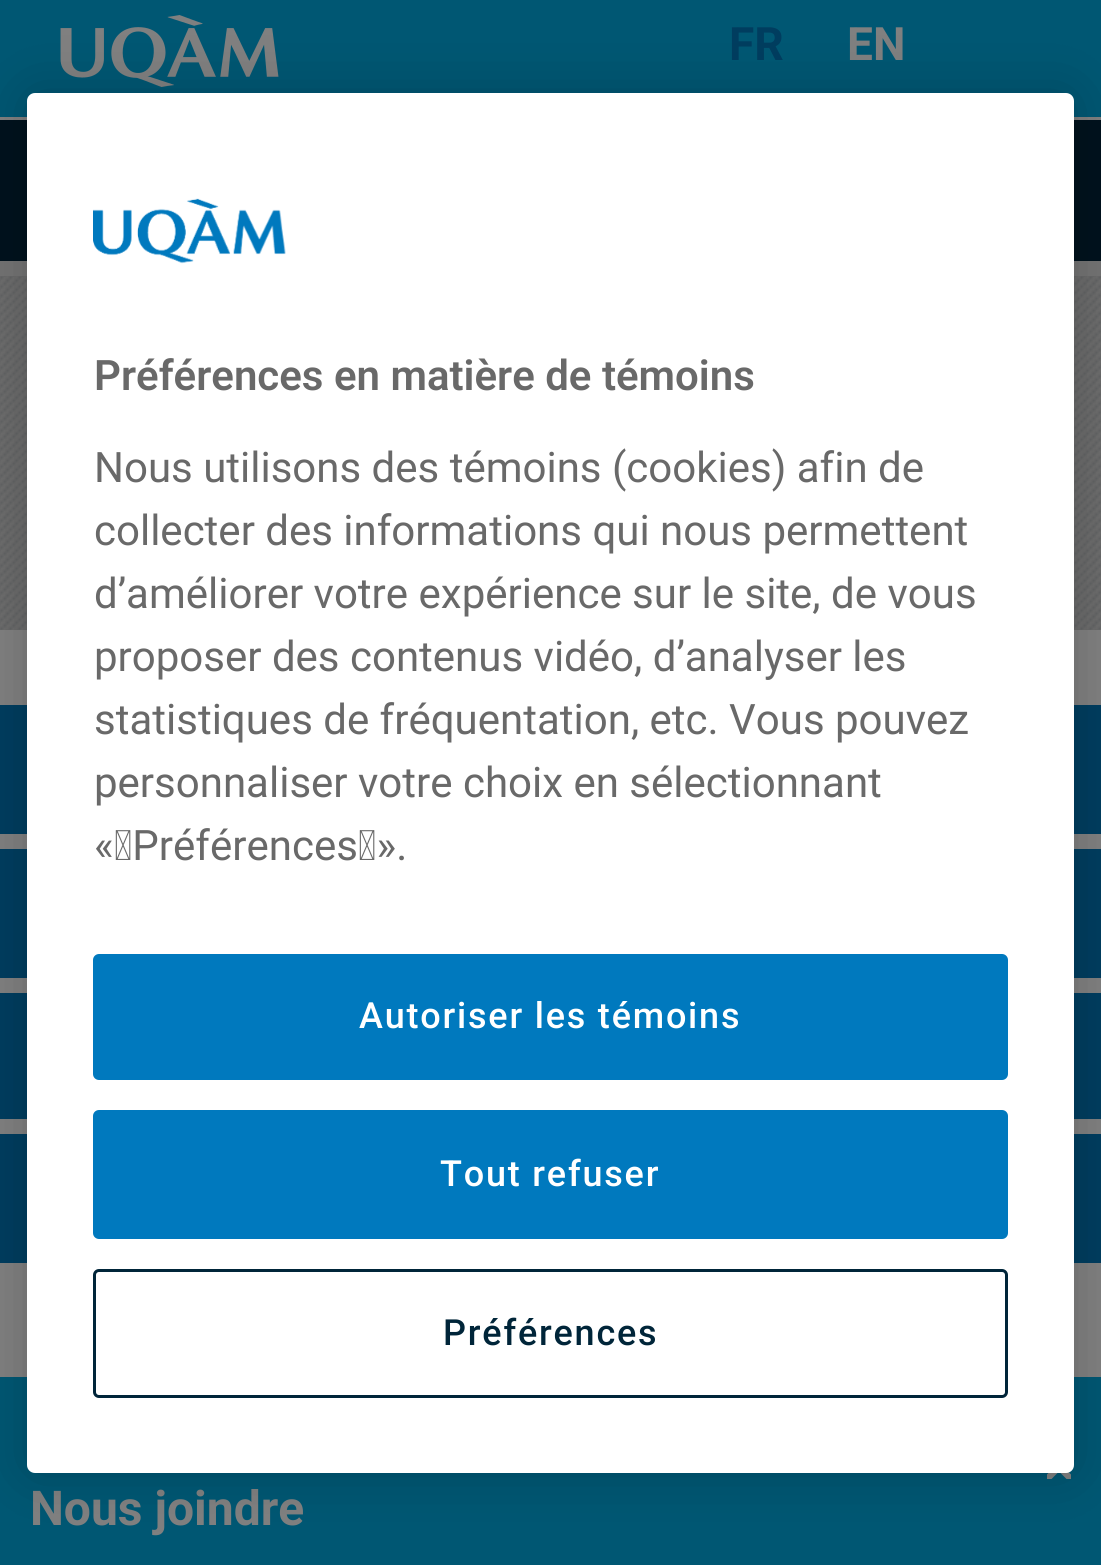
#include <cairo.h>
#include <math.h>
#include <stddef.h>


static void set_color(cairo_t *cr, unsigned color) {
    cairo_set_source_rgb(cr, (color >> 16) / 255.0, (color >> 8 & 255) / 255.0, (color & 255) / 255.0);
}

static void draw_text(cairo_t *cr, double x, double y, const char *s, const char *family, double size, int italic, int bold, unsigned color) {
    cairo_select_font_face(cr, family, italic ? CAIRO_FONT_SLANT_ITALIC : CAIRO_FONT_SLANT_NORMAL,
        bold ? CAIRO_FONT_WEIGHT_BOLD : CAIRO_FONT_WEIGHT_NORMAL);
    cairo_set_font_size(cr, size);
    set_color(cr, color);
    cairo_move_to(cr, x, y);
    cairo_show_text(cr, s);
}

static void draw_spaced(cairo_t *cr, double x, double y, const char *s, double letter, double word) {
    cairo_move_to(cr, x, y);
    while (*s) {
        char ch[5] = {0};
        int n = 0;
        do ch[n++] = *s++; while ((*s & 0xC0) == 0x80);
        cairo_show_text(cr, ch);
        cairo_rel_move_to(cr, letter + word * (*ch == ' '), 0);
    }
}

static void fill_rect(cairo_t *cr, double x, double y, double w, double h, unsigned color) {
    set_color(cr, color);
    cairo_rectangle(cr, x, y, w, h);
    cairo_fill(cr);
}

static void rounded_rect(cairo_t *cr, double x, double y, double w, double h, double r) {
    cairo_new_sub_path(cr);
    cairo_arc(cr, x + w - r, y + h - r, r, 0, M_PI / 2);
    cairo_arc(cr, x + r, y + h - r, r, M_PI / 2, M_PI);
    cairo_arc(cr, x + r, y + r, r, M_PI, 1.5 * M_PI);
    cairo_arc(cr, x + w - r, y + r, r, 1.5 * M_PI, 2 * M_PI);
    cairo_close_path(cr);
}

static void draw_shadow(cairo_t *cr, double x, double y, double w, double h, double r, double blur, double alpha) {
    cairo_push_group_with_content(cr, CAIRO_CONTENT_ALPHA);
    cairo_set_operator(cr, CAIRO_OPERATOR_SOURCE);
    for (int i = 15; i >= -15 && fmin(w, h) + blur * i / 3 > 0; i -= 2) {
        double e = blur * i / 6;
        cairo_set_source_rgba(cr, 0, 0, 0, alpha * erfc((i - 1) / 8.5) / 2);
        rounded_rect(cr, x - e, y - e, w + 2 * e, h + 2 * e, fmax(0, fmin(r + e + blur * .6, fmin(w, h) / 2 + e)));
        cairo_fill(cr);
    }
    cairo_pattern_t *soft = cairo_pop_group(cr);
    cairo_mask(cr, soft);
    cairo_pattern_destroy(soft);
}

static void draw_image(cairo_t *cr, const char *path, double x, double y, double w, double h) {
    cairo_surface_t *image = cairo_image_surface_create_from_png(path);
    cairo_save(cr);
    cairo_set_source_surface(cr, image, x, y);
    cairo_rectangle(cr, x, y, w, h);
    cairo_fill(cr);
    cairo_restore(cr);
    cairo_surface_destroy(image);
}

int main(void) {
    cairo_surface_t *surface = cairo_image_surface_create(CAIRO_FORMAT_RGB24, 1101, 1565);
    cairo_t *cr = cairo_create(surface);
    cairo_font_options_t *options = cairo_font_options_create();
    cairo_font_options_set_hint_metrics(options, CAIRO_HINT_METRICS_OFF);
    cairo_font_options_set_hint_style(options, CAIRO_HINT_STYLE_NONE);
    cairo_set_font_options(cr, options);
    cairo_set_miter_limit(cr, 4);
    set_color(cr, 0x808080);
    cairo_paint(cr);
    fill_rect(cr, 0, 0, 1101, 117, 0x005773);
    draw_image(cr, "assets/img1.png", 60, 15, 219, 72);
    draw_text(cr, 729, 60, "FR", "Roboto", 46, 0, 1, 0x003D5F);
    draw_text(cr, 847, 60, "EN", "Roboto", 46, 0, 1, 0x808080);
    fill_rect(cr, 0, 120, 1101, 141, 0x00121D);
    fill_rect(cr, 0, 261, 1101, 15, 0x737373);
    draw_image(cr, "assets/img2.png", 0, 276, 1101, 354);
    fill_rect(cr, 0, 705, 1101, 129, 0x003D5F);
    fill_rect(cr, 0, 849, 1101, 129, 0x003D5F);
    fill_rect(cr, 0, 993, 1101, 126, 0x003D5F);
    fill_rect(cr, 0, 1134, 1101, 129, 0x003D5F);
    fill_rect(cr, 0, 1377, 1101, 188, 0x005773);
    draw_image(cr, "assets/img3.png", 1047, 1472, 24, 7);
    draw_text(cr, 30, 1525, "Nous joindre", "Roboto", 48, 0, 1, 0x808080);
    set_color(cr, 0x000000);
    draw_shadow(cr, 27, 93, 1047, 1380, 8, 27, 0.2);
    set_color(cr, 0xFFFFFF);
    rounded_rect(cr, 27, 93, 1047, 1380, 8);
    cairo_fill(cr);
    draw_image(cr, "assets/img4.png", 93, 198, 193, 66);
    draw_text(cr, 94, 390, "Préférences en matière de témoins", "Roboto SemiBold", 42, 0, 0, 0x696969);
    draw_text(cr, 94, 482, "Nous utilisons des témoins (cookies) afin de", "Roboto", 42, 0, 0, 0x696969);
    draw_text(cr, 94, 545, "collecter des informations qui nous permettent", "Roboto", 42, 0, 0, 0x696969);
    draw_text(cr, 94, 608, "d’améliorer votre expérience sur le site, de vous", "Roboto", 42, 0, 0, 0x696969);
    draw_text(cr, 94, 671, "proposer des contenus vidéo, d’analyser les", "Roboto", 42, 0, 0, 0x696969);
    draw_text(cr, 94, 734, "statistiques de fréquentation, etc. Vous pouvez", "Roboto", 42, 0, 0, 0x696969);
    draw_text(cr, 94, 797, "personnaliser votre choix en sélectionnant", "Roboto", 42, 0, 0, 0x696969);
    draw_text(cr, 94, 860, "« Préférences ».", "Roboto", 42, 0, 0, 0x696969);
    set_color(cr, 0x0079BE);
    rounded_rect(cr, 94.5, 955.5, 912, 123, 4.5);
    cairo_fill_preserve(cr);
    cairo_set_line_width(cr, 3);
    cairo_stroke(cr);
    cairo_select_font_face(cr, "Roboto Medium", CAIRO_FONT_SLANT_NORMAL, CAIRO_FONT_WEIGHT_NORMAL);
    cairo_set_font_size(cr, 36);
    set_color(cr, 0xFFFFFF);
    draw_spaced(cr, 359, 1028, "Autoriser les témoins", 1.8, 0);
    set_color(cr, 0x0079BE);
    rounded_rect(cr, 94.5, 1111.5, 912, 126, 4.5);
    cairo_fill_preserve(cr);
    cairo_stroke(cr);
    set_color(cr, 0xFFFFFF);
    draw_spaced(cr, 440, 1186, "Tout refuser", 1.8, 0);
    rounded_rect(cr, 94.5, 1270.5, 912, 126, 4.5);
    set_color(cr, 0x002539);
    cairo_stroke(cr);
    draw_spaced(cr, 443, 1345, "Préférences", 1.8, 0);
    cairo_surface_write_to_png(surface, "output.png");
    cairo_font_options_destroy(options);
    cairo_destroy(cr);
    cairo_surface_destroy(surface);
    return 0;
}
